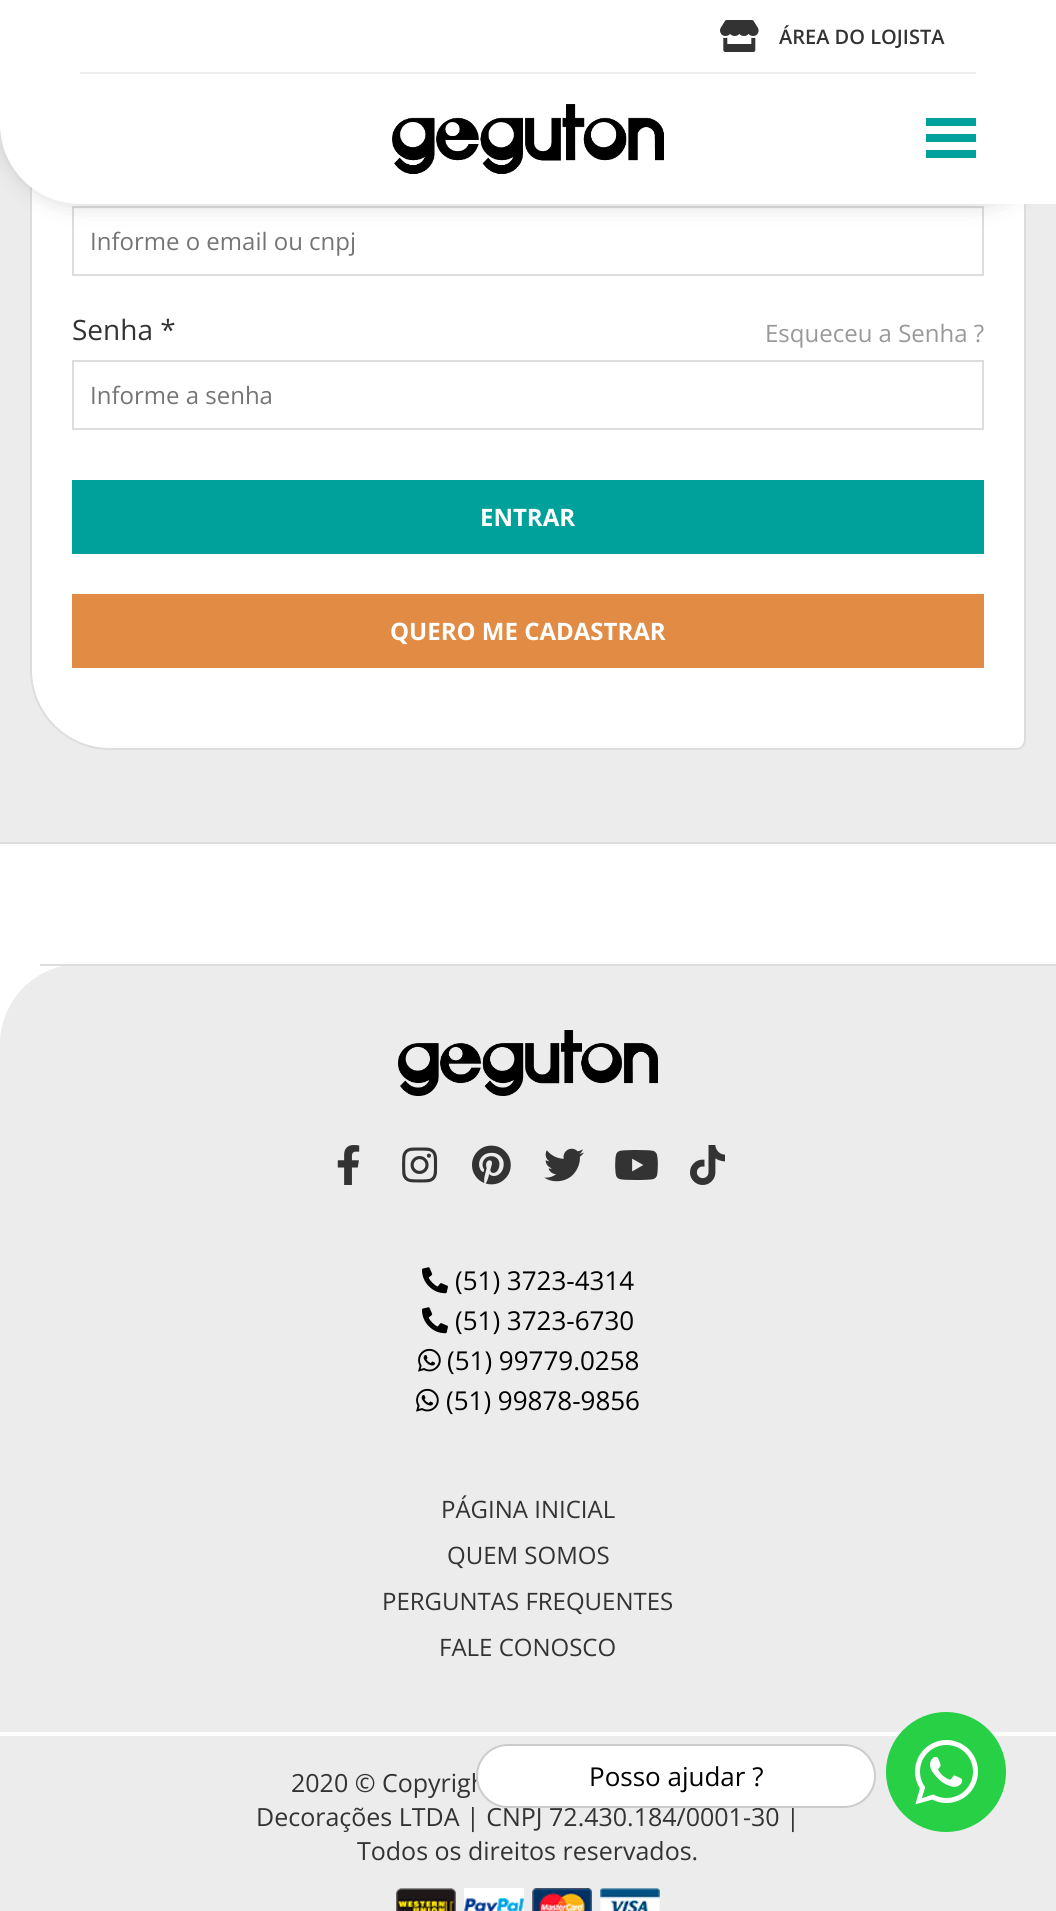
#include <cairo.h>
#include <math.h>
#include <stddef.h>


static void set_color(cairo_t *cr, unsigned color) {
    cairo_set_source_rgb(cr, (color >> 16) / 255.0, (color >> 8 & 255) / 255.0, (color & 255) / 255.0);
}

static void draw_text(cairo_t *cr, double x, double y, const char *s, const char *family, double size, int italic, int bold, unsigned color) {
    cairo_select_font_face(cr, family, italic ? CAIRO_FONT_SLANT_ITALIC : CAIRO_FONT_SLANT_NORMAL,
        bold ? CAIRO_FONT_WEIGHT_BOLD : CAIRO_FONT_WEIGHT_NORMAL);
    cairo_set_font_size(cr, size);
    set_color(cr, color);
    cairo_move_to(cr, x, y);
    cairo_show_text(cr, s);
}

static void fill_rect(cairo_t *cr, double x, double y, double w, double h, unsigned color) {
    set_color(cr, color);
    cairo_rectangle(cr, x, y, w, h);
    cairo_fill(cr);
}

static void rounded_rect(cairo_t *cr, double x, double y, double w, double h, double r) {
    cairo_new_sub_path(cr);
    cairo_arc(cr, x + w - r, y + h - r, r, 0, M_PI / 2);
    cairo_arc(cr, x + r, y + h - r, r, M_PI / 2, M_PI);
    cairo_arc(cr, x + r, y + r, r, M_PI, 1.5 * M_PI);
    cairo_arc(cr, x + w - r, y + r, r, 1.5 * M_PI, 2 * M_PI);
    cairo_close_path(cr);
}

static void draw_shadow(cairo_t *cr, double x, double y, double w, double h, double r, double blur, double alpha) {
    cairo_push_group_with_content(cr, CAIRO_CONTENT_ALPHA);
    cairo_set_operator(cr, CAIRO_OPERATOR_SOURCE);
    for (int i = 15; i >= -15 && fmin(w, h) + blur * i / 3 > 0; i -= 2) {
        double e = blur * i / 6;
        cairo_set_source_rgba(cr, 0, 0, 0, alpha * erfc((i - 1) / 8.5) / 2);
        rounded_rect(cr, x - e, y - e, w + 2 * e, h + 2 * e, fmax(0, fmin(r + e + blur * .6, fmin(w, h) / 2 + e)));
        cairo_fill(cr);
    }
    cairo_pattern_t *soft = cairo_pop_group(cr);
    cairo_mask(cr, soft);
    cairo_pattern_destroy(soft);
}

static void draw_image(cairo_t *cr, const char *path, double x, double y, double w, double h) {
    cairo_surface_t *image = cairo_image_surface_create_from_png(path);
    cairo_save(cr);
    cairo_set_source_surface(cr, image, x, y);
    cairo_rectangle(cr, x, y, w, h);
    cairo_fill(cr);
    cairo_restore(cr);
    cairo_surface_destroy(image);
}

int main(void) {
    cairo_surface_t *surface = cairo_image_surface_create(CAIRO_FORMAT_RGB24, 1056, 1911);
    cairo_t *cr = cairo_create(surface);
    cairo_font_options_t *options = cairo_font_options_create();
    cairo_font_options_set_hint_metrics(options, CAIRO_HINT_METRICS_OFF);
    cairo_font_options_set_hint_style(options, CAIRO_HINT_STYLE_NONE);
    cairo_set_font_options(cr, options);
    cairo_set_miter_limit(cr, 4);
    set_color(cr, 0xFFFFFF);
    cairo_paint(cr);
    fill_rect(cr, 0, 124, 1056, 718, 0xECECEC);
    set_color(cr, 0xFFFFFF);
    cairo_new_path(cr);
    cairo_move_to(cr, 40, 15);
    cairo_line_to(cr, 1016, 15);
    cairo_curve_to(cr, 1021, 15, 1025, 19, 1025, 24);
    cairo_line_to(cr, 1025, 740);
    cairo_curve_to(cr, 1025, 745, 1021, 749, 1016, 749);
    cairo_line_to(cr, 110, 749);
    cairo_curve_to(cr, 66.5, 749, 31, 713.5, 31, 670);
    cairo_line_to(cr, 31, 24);
    cairo_curve_to(cr, 31, 19, 35, 15, 40, 15);
    cairo_close_path(cr);
    cairo_fill_preserve(cr);
    set_color(cr, 0xDDDDDD);
    cairo_stroke(cr);
    cairo_rectangle(cr, 73, 207, 910, 68);
    cairo_stroke(cr);
    set_color(cr, 0x212121);
    draw_shadow(cr, 0, 0, 1056, 204, 80, 11, 0.2);
    set_color(cr, 0xFFFFFF);
    cairo_new_path(cr);
    cairo_move_to(cr, 0, 0);
    cairo_line_to(cr, 1056, 0);
    cairo_line_to(cr, 1056, 204);
    cairo_line_to(cr, 80, 204);
    cairo_curve_to(cr, 36, 204, 0, 168, 0, 124);
    cairo_close_path(cr);
    cairo_fill(cr);
    fill_rect(cr, 80, 72, 896, 2, 0xEEEEEE);
    draw_image(cr, "assets/img1.png", 720, 20, 39, 32);
    draw_text(cr, 779, 44, "ÁREA DO LOJISTA", "Open Sans SemiBold", 20, 0, 0, 0x333333);
    draw_image(cr, "assets/img2.png", 392, 104, 272, 70);
    fill_rect(cr, 926, 134, 50, 8, 0x00A19B);
    fill_rect(cr, 926, 118, 50, 8, 0x00A19B);
    fill_rect(cr, 926, 150, 50, 8, 0x00A19B);
    draw_text(cr, 90, 250, "Informe o email ou cnpj", "Open Sans", 24, 0, 0, 0x757575);
    draw_text(cr, 72, 340, "Senha *", "Open Sans", 28, 0, 0, 0x333333);
    draw_text(cr, 765, 342, "Esqueceu a Senha ?", "Open Sans", 24, 0, 0, 0x999999);
    cairo_rectangle(cr, 73, 361, 910, 68);
    set_color(cr, 0xDDDDDD);
    cairo_stroke(cr);
    draw_text(cr, 90, 404, "Informe a senha", "Open Sans", 24, 0, 0, 0x757575);
    fill_rect(cr, 72, 480, 912, 74, 0x00A19B);
    draw_text(cr, 480, 526, "ENTRAR", "Open Sans", 24, 0, 1, 0xFFFFFF);
    fill_rect(cr, 72, 594, 912, 74, 0xE28B44);
    draw_text(cr, 390, 640, "QUERO ME CADASTRAR", "Open Sans", 24, 0, 1, 0xFFFFFF);
    fill_rect(cr, 0, 842, 1056, 2, 0xDDDDDD);
    set_color(cr, 0xECECEC);
    cairo_new_path(cr);
    cairo_move_to(cr, 80, 964);
    cairo_line_to(cr, 1056, 964);
    cairo_line_to(cr, 1056, 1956);
    cairo_line_to(cr, 0, 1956);
    cairo_line_to(cr, 0, 1044);
    cairo_curve_to(cr, 0, 1000, 36, 964, 80, 964);
    cairo_close_path(cr);
    cairo_fill(cr);
    fill_rect(cr, 40, 964, 1016, 2, 0xDDDDDD);
    draw_image(cr, "assets/img3.png", 398, 1030, 260, 66);
    draw_image(cr, "assets/img4.png", 337, 1145, 23, 40);
    draw_image(cr, "assets/img5.png", 402, 1147, 36, 36);
    draw_image(cr, "assets/img6.png", 472, 1145, 39, 40);
    draw_image(cr, "assets/img7.png", 544, 1148, 40, 34);
    draw_image(cr, "assets/img8.png", 615, 1150, 43, 30);
    draw_image(cr, "assets/img9.png", 690, 1145, 35, 40);
    draw_image(cr, "assets/img10.png", 422, 1267, 26, 27);
    draw_text(cr, 455, 1290, "(51) 3723-4314", "Open Sans", 26, 0, 0, 0x000000);
    draw_image(cr, "assets/img10.png", 422, 1307, 26, 27);
    draw_text(cr, 455, 1330, "(51) 3723-6730", "Open Sans", 26, 0, 0, 0x000000);
    draw_image(cr, "assets/img11.png", 418, 1348, 23, 24);
    draw_text(cr, 447, 1370, "(51) 99779.0258", "Open Sans", 26, 0, 0, 0x000000);
    draw_image(cr, "assets/img11.png", 416, 1388, 23, 24);
    draw_text(cr, 446, 1410, "(51) 99878-9856", "Open Sans", 26, 0, 0, 0x000000);
    draw_text(cr, 441, 1518, "PÁGINA INICIAL", "Open Sans", 24, 0, 0, 0x333333);
    draw_text(cr, 447, 1564, "QUEM SOMOS", "Open Sans", 24, 0, 0, 0x333333);
    draw_text(cr, 382, 1610, "PERGUNTAS FREQUENTES", "Open Sans", 24, 0, 0, 0x333333);
    draw_text(cr, 439, 1656, "FALE CONOSCO", "Open Sans", 24, 0, 0, 0x333333);
    fill_rect(cr, 0, 1732, 1056, 4, 0xFFFFFF);
    draw_text(cr, 291, 1792, "2020 © Copyrigh", "Open Sans", 25, 0, 0, 0x333333);
    draw_text(cr, 256, 1826, "Decorações LTDA | CNPJ 72.430.184/0001-30 |", "Open Sans", 25, 0, 0, 0x333333);
    draw_text(cr, 357, 1860, "Todos os direitos reservados.", "Open Sans", 25, 0, 0, 0x333333);
    draw_image(cr, "assets/img12.png", 396, 1888, 60, 23);
    draw_image(cr, "assets/img13.png", 464, 1888, 60, 23);
    draw_image(cr, "assets/img14.png", 532, 1888, 60, 23);
    draw_image(cr, "assets/img15.png", 600, 1888, 60, 23);
    set_color(cr, 0xFFFFFF);
    rounded_rect(cr, 477, 1745, 398, 62, 31);
    cairo_fill_preserve(cr);
    set_color(cr, 0xCCCCCC);
    cairo_stroke(cr);
    draw_text(cr, 589, 1786, "Posso ajudar ?", "Open Sans", 26, 0, 0, 0x000000);
    draw_image(cr, "assets/img16.png", 886, 1712, 120, 120);
    cairo_surface_write_to_png(surface, "output.png");
    cairo_font_options_destroy(options);
    cairo_destroy(cr);
    cairo_surface_destroy(surface);
    return 0;
}
